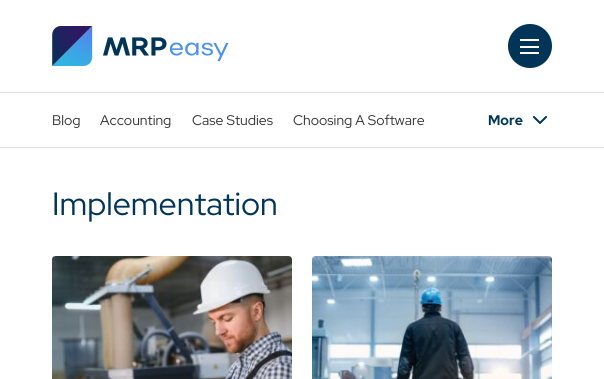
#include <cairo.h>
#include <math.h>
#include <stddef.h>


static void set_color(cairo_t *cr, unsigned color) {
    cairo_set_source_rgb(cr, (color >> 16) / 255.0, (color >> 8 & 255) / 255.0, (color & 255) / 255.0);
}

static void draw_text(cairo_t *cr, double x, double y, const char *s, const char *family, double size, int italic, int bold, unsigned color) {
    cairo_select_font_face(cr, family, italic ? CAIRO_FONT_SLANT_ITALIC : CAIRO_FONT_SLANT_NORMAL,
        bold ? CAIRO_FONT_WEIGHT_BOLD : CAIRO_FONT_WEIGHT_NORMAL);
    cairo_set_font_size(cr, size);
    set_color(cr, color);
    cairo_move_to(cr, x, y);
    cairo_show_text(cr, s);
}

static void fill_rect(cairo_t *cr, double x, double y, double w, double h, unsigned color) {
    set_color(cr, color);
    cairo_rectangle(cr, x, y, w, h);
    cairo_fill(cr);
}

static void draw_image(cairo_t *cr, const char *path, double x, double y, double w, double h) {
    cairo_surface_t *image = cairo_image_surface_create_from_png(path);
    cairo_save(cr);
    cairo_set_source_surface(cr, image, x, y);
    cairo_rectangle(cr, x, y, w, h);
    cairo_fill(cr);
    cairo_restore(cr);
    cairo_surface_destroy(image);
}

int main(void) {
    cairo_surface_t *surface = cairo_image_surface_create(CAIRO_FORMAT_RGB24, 604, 379);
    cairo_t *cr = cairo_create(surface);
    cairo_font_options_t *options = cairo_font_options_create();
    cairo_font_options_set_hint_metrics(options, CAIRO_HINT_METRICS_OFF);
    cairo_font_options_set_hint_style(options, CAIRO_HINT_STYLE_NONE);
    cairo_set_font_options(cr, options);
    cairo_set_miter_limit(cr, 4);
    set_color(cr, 0xFFFFFF);
    cairo_paint(cr);
    fill_rect(cr, 0, 92, 604, 1, 0xDEE2E6);
    draw_image(cr, "assets/img1.png", 52, 26, 177, 40);
    set_color(cr, 0x003557);
    cairo_arc(cr, 530, 46, 22, 0, 2 * M_PI);
    cairo_fill(cr);
    fill_rect(cr, 520, 52, 19, 2, 0xFFFFFF);
    fill_rect(cr, 520, 39, 19, 2, 0xFFFFFF);
    fill_rect(cr, 520, 46, 19, 2, 0xFFFFFF);
    fill_rect(cr, 0, 147, 604, 1, 0xDEE2E6);
    draw_text(cr, 52, 125, "Blog", "Red Hat Display", 14, 0, 0, 0x343333);
    draw_text(cr, 100, 125, "Accounting", "Red Hat Display", 14, 0, 0, 0x343333);
    draw_text(cr, 192, 125, "Case Studies", "Red Hat Display", 14, 0, 0, 0x343333);
    draw_text(cr, 293, 125, "Choosing A Software", "Red Hat Display", 14, 0, 0, 0x343333);
    draw_text(cr, 488, 125, "More", "Red Hat Display", 14, 0, 1, 0x003557);
    draw_image(cr, "assets/img2.png", 533, 116, 14, 8);
    draw_text(cr, 52, 215, "Implementation", "Red Hat Display", 32.25, 0, 0, 0x003557);
    draw_image(cr, "assets/img3.png", 52, 256, 240, 123);
    draw_image(cr, "assets/img4.png", 312, 256, 240, 123);
    cairo_surface_write_to_png(surface, "output.png");
    cairo_font_options_destroy(options);
    cairo_destroy(cr);
    cairo_surface_destroy(surface);
    return 0;
}
